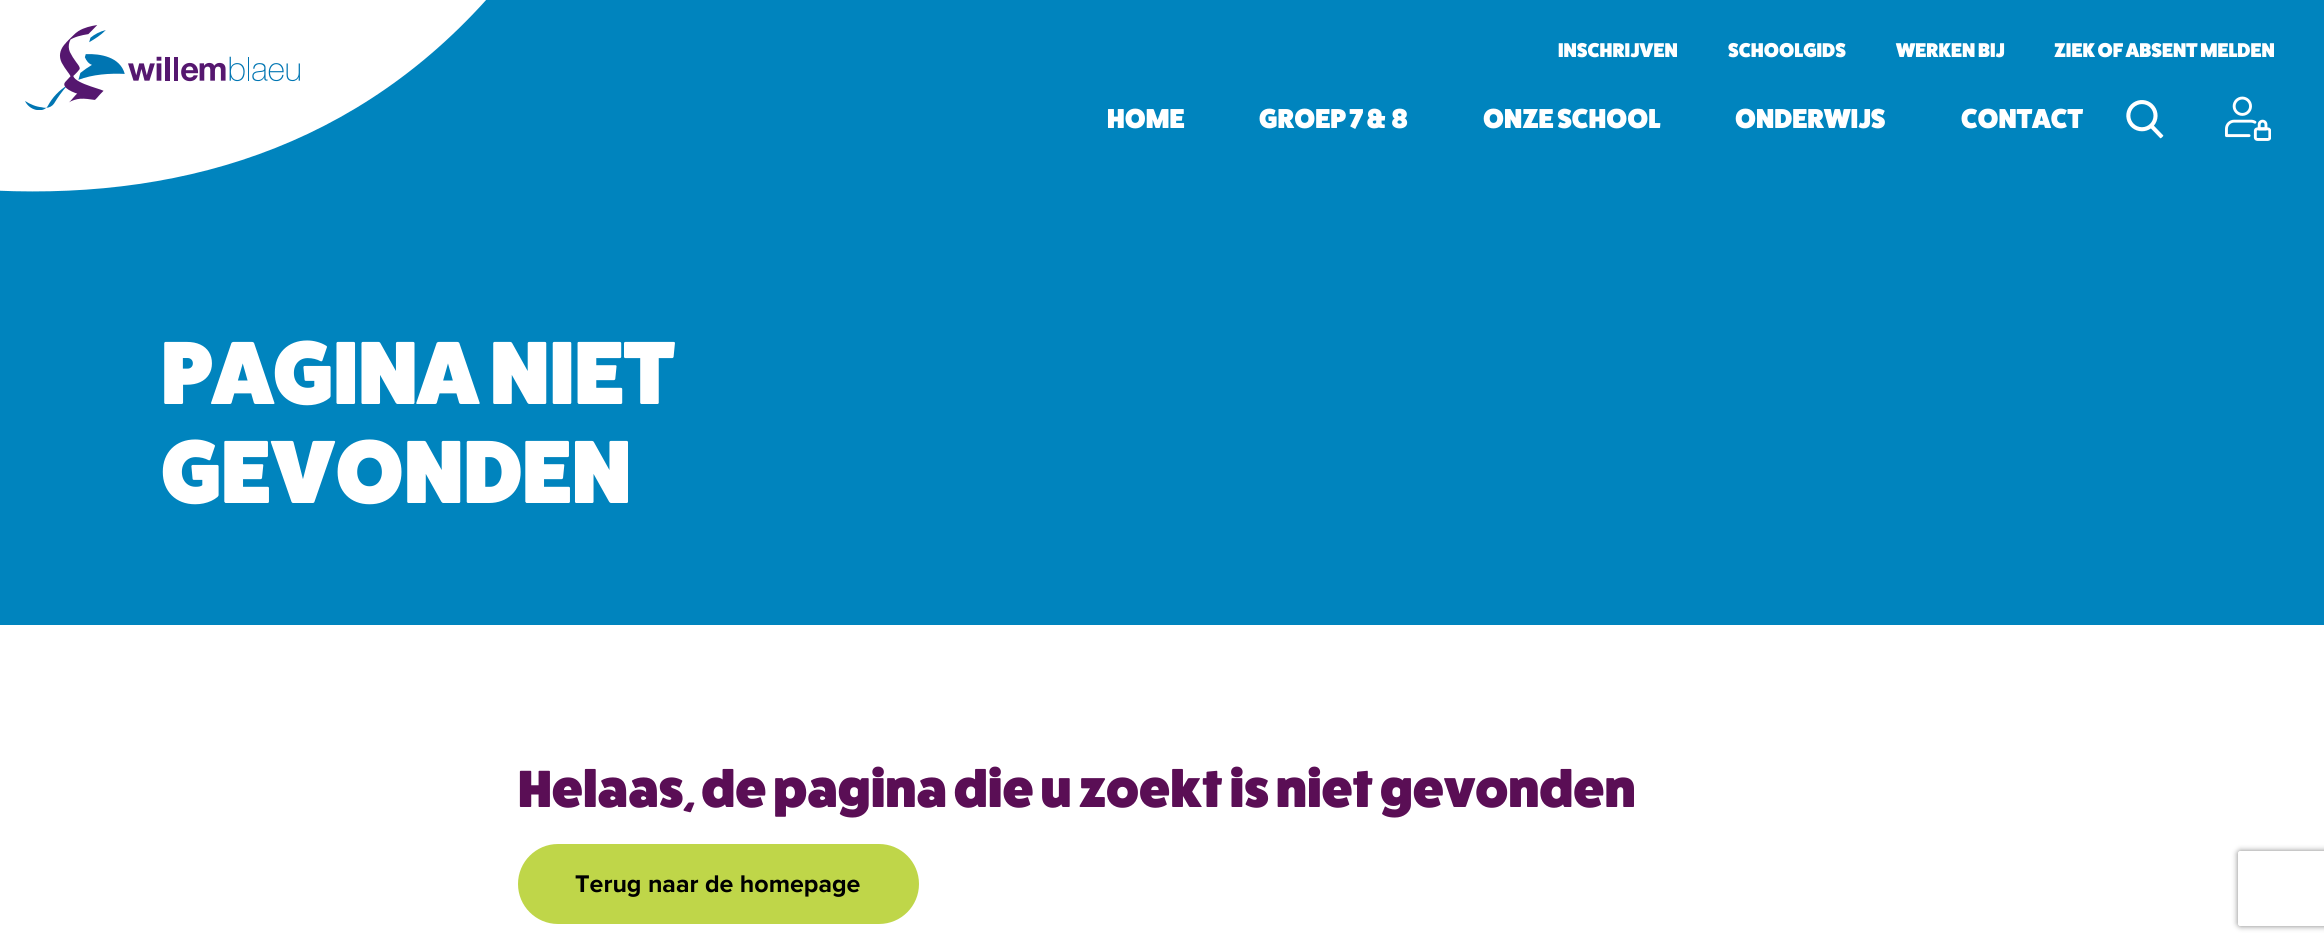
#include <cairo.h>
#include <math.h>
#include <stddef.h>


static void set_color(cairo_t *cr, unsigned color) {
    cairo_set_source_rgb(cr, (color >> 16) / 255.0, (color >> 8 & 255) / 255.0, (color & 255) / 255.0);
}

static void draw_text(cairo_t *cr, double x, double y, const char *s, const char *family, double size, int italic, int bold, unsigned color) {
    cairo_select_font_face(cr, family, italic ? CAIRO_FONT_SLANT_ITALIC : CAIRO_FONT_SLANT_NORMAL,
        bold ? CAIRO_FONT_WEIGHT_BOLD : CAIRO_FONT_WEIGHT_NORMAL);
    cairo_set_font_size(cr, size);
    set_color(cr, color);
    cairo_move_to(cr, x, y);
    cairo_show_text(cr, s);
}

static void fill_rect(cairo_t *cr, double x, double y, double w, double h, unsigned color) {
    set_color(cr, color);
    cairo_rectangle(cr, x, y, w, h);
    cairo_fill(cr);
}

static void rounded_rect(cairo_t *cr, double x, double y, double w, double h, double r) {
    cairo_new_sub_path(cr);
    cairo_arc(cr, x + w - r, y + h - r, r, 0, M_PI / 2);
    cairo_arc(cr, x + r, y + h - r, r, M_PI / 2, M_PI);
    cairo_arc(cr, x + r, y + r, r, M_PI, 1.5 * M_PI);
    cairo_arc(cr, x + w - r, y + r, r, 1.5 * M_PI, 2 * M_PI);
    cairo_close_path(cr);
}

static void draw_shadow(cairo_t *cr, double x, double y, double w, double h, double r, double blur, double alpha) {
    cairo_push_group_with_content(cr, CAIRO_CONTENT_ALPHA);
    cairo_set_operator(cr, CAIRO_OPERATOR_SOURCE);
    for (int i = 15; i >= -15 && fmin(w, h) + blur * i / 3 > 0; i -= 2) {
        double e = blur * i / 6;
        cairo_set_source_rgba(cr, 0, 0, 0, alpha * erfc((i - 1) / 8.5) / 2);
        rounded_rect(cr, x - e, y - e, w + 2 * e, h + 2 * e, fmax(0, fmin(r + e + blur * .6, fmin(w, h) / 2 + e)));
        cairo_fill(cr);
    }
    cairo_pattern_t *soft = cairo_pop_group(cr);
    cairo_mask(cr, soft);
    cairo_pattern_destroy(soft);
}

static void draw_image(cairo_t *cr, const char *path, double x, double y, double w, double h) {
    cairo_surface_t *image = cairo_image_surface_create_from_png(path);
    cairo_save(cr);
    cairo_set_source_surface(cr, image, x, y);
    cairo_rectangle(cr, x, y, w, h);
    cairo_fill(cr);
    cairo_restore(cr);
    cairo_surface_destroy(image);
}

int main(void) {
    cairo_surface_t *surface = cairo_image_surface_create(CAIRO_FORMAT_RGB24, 2324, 943);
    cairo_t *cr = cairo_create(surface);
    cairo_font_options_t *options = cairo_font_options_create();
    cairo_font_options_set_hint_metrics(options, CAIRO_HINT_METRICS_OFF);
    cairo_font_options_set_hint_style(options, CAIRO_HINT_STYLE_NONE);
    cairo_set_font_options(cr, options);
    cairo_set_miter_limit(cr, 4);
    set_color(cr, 0xFFFFFF);
    cairo_paint(cr);
    fill_rect(cr, 0, 0, 2324, 625, 0x0084BE);
    set_color(cr, 0xFFFFFF);
    cairo_new_path(cr);
    cairo_move_to(cr, -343, -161);
    cairo_curve_to(cr, -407, -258, -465, -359, -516, -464);
    cairo_line_to(cr, -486, -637);
    cairo_curve_to(cr, -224, -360, 134, -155, 487, -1);
    cairo_curve_to(cr, 199, 320, -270, 180, -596, 7);
    cairo_line_to(cr, -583, -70);
    cairo_curve_to(cr, -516, -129, -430, -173, -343, -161);
    cairo_fill(cr);
    draw_image(cr, "assets/img1.png", 25, 25, 275, 85);
    draw_text(cr, 1558, 57, "INSCHRIJVEN", "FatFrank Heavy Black", 20, 0, 0, 0xFFFFFF);
    draw_text(cr, 1728, 57, "SCHOOLGIDS", "FatFrank Heavy Black", 20, 0, 0, 0xFFFFFF);
    draw_text(cr, 1896, 57, "WERKEN BIJ", "FatFrank Heavy Black", 20, 0, 0, 0xFFFFFF);
    draw_text(cr, 2054, 57, "ZIEK OF ABSENT MELDEN", "FatFrank Heavy Black", 20, 0, 0, 0xFFFFFF);
    draw_text(cr, 1107, 128, "HOME", "FatFrank Heavy Black", 27.5, 0, 0, 0xFFFFFF);
    draw_text(cr, 1259, 128, "GROEP 7 & 8", "FatFrank Heavy Black", 27.5, 0, 0, 0xFFFFFF);
    draw_text(cr, 1483, 128, "ONZE SCHOOL", "FatFrank Heavy Black", 27.5, 0, 0, 0xFFFFFF);
    draw_text(cr, 1735, 128, "ONDERWIJS", "FatFrank Heavy Black", 27.5, 0, 0, 0xFFFFFF);
    draw_text(cr, 1961, 128, "CONTACT", "FatFrank Heavy Black", 27.5, 0, 0, 0xFFFFFF);
    draw_image(cr, "assets/img2.png", 2126, 100, 38, 39);
    draw_image(cr, "assets/img3.png", 2225, 96, 46, 45);
    draw_text(cr, 161, 404, "PAGINA NIET", "FatFrank Heavy Black", 90, 0, 0, 0xFFFFFF);
    draw_text(cr, 161, 503, "GEVONDEN", "FatFrank Heavy Black", 90, 0, 0, 0xFFFFFF);
    draw_text(cr, 518, 807, "Helaas, de pagina die u zoekt is niet gevonden", "FatFrank Heavy Black", 52.5, 0, 0, 0x5A0E55);
    set_color(cr, 0xBFD649);
    rounded_rect(cr, 518, 844, 401, 80, 40);
    cairo_fill(cr);
    draw_text(cr, 575, 892, "Terug naar de homepage", "Proxima Nova", 25, 0, 1, 0x000000);
    cairo_save(cr);
    cairo_set_fill_rule(cr, CAIRO_FILL_RULE_EVEN_ODD);
    cairo_new_path(cr);
    cairo_move_to(cr, 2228, 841);
    cairo_line_to(cr, 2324, 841);
    cairo_line_to(cr, 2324, 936);
    cairo_line_to(cr, 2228, 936);
    cairo_close_path(cr);
    cairo_move_to(cr, 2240.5, 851);
    cairo_line_to(cr, 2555.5, 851);
    cairo_curve_to(cr, 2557, 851, 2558, 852, 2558, 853.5);
    cairo_line_to(cr, 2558, 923.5);
    cairo_curve_to(cr, 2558, 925, 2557, 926, 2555.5, 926);
    cairo_line_to(cr, 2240.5, 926);
    cairo_curve_to(cr, 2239, 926, 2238, 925, 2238, 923.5);
    cairo_line_to(cr, 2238, 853.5);
    cairo_curve_to(cr, 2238, 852, 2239, 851, 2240.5, 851);
    cairo_close_path(cr);
    cairo_clip(cr);
    set_color(cr, 0x808080);
    draw_shadow(cr, 2238, 851, 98, 75, 2.5, 3, 1);
    cairo_restore(cr);
    cairo_surface_write_to_png(surface, "output.png");
    cairo_font_options_destroy(options);
    cairo_destroy(cr);
    cairo_surface_destroy(surface);
    return 0;
}
